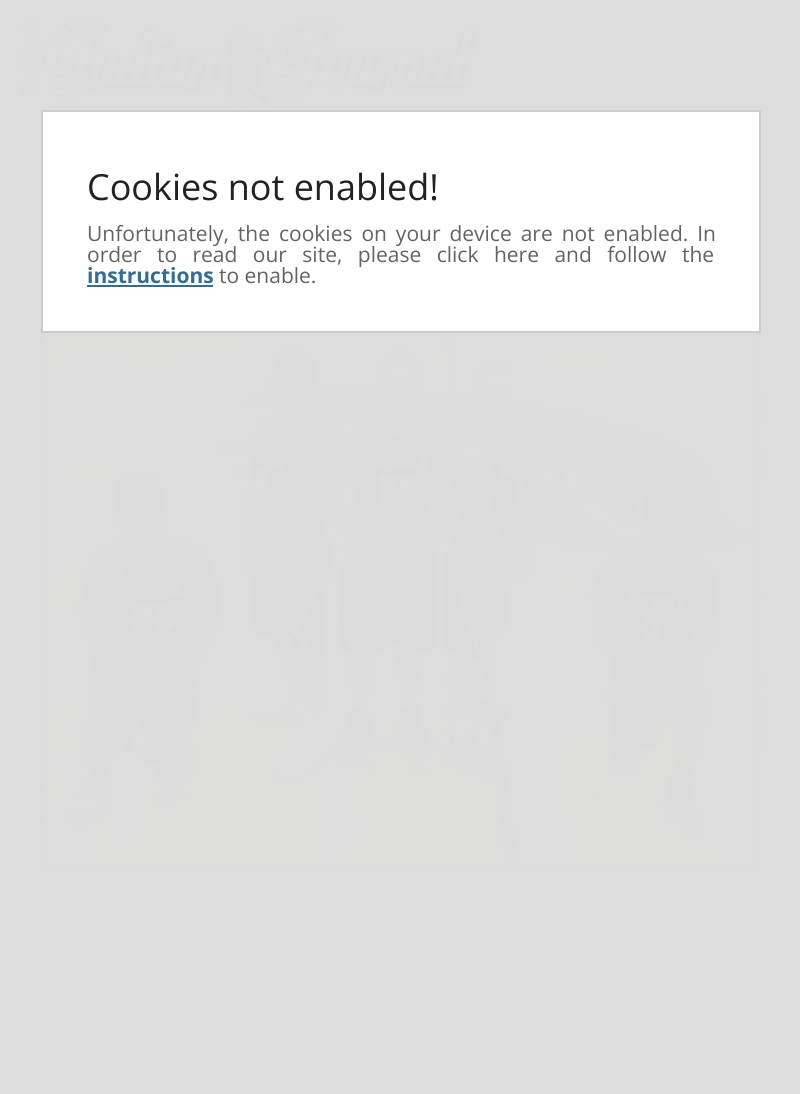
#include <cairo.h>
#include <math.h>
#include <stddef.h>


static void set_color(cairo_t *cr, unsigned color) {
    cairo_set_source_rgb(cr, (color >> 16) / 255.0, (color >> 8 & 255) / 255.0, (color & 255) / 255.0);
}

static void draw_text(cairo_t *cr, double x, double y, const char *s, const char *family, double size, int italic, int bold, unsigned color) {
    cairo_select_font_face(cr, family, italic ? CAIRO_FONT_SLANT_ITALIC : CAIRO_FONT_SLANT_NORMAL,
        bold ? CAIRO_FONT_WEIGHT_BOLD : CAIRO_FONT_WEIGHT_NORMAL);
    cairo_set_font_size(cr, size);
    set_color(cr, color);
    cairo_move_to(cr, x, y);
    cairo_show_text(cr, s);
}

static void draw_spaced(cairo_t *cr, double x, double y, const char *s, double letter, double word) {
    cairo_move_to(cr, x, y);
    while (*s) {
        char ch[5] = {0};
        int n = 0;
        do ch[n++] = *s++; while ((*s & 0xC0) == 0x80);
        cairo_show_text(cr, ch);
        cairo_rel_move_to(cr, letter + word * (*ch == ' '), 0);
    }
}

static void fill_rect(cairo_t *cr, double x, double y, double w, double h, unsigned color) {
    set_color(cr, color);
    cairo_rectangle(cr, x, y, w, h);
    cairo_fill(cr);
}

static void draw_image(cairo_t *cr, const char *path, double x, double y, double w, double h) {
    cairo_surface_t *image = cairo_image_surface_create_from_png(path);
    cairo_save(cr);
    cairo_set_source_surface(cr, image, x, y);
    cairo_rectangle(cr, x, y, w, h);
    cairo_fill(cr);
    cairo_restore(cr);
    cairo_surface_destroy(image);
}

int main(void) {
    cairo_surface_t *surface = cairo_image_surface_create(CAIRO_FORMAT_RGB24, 800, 1094);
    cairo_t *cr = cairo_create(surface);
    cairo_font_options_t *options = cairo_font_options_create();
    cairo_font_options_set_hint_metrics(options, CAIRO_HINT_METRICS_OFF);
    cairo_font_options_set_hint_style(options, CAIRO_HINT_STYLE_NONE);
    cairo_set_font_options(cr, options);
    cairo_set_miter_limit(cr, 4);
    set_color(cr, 0xDDDDDD);
    cairo_paint(cr);
    draw_image(cr, "assets/img1.png", 21, 19, 456, 97);
    draw_image(cr, "assets/img2.png", 40, 324, 721, 548);
    set_color(cr, 0xFFFFFF);
    cairo_rectangle(cr, 42, 111, 718, 221);
    cairo_fill_preserve(cr);
    set_color(cr, 0xCCCCCC);
    cairo_stroke(cr);
    draw_text(cr, 87, 200, "Cookies not enabled!", "Open Sans", 36, 0, 0, 0x222222);
    cairo_set_font_size(cr, 21);
    set_color(cr, 0x636363);
    draw_spaced(cr, 87, 241, "Unfortunately, the cookies on your device are not enabled. In", 0, 3.5);
    draw_spaced(cr, 87, 262, "order to read our site, please click here and follow the", 0, 10);
    draw_text(cr, 87, 283, "instructions", "Open Sans", 21, 0, 1, 0x2E6D9D);
    fill_rect(cr, 87, 285, 126, 2, 0x2E6D9D);
    draw_text(cr, 219, 283, "to enable.", "Open Sans", 21, 0, 0, 0x636363);
    cairo_surface_write_to_png(surface, "output.png");
    cairo_font_options_destroy(options);
    cairo_destroy(cr);
    cairo_surface_destroy(surface);
    return 0;
}
